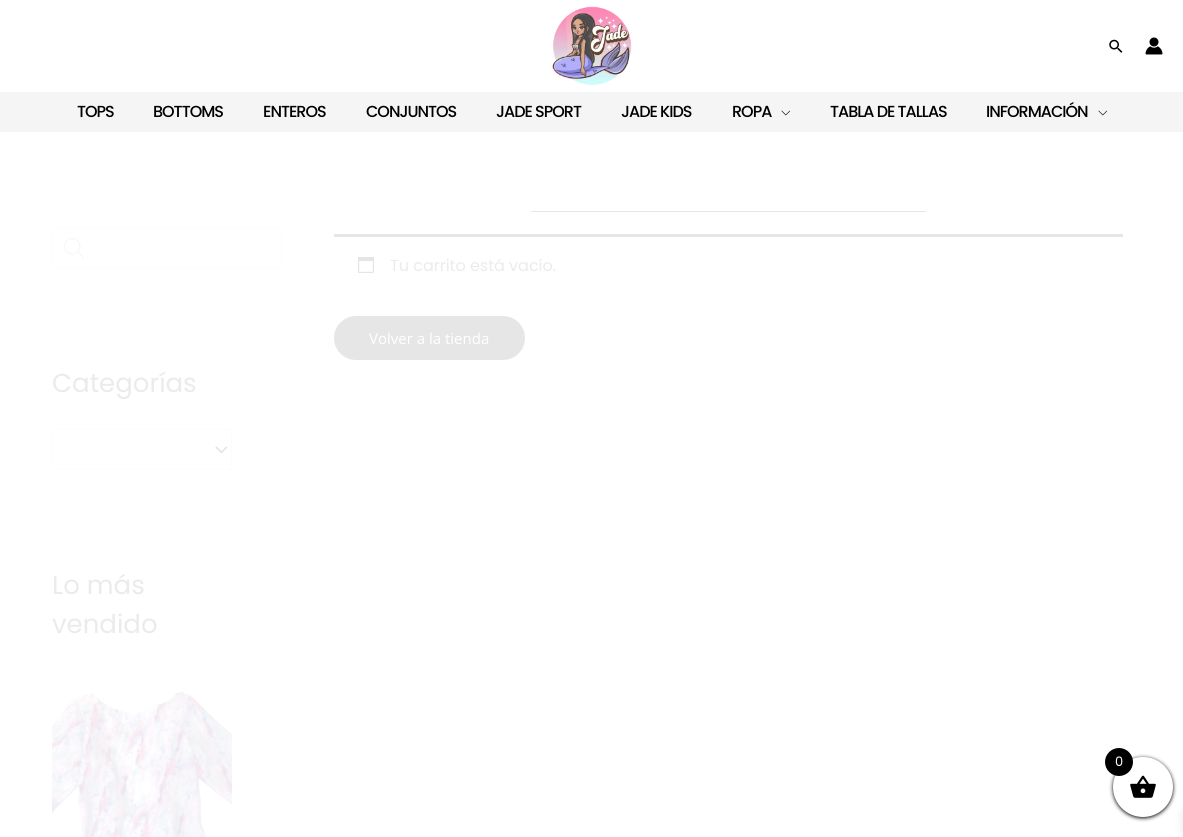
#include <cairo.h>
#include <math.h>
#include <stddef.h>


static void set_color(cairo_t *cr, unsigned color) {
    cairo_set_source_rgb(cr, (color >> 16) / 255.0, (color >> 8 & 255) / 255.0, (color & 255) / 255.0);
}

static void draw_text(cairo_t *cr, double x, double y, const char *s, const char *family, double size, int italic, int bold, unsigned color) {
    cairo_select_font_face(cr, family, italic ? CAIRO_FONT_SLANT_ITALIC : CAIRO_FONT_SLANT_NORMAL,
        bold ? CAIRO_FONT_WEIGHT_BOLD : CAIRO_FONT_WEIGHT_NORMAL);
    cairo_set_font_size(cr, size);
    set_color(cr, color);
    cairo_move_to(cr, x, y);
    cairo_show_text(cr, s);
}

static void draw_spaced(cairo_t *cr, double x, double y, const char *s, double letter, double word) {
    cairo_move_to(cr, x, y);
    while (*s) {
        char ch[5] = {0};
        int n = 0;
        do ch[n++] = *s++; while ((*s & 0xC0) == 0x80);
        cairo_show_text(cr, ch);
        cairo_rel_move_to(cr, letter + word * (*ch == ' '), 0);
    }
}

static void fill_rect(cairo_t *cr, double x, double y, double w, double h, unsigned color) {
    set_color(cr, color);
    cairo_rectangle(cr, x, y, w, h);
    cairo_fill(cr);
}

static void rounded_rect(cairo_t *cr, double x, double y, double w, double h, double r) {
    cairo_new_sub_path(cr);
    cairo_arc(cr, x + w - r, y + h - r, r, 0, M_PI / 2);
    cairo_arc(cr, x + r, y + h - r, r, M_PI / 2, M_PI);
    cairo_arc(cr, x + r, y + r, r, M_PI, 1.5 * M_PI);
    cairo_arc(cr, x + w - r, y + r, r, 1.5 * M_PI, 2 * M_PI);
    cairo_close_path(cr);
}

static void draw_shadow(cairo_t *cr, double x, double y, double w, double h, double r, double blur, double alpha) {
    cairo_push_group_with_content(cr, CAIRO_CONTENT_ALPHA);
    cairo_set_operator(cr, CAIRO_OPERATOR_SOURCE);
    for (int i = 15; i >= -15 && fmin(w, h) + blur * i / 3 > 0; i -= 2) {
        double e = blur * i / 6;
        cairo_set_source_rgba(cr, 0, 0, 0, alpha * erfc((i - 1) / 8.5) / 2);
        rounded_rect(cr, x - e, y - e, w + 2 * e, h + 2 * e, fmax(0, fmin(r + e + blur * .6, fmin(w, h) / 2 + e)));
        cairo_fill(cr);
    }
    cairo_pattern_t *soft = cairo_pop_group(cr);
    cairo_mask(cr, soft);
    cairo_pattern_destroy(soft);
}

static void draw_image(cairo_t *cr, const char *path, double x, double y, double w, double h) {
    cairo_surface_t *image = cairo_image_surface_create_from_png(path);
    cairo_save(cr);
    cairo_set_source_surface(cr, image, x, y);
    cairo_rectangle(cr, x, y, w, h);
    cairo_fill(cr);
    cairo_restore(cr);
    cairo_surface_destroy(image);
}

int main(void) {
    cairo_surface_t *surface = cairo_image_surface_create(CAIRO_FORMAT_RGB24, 1183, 837);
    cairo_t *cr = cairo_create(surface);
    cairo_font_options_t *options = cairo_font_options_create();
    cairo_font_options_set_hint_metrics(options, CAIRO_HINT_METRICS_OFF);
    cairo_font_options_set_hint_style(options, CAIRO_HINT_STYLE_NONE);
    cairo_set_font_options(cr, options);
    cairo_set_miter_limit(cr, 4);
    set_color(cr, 0xFFFFFF);
    cairo_paint(cr);
    draw_image(cr, "assets/img1.png", 552, 6, 80, 79);
    draw_image(cr, "assets/img2.png", 1109, 39, 14, 14);
    draw_image(cr, "assets/img3.png", 1145, 37, 18, 18);
    fill_rect(cr, 0, 92, 1183, 40, 0xF5F5F5);
    cairo_select_font_face(cr, "Poppins Medium", CAIRO_FONT_SLANT_NORMAL, CAIRO_FONT_WEIGHT_NORMAL);
    cairo_set_font_size(cr, 16);
    set_color(cr, 0x000000);
    draw_spaced(cr, 77, 117, "TOPS", -1, 0);
    draw_spaced(cr, 153, 117, "BOTTOMS", -1, 0);
    draw_spaced(cr, 263, 117, "ENTEROS", -1, 0);
    draw_spaced(cr, 366, 117, "CONJUNTOS", -1, 0);
    draw_spaced(cr, 496, 117, "JADE SPORT", -1, 0);
    draw_spaced(cr, 621, 117, "JADE KIDS", -1, 0);
    draw_spaced(cr, 732, 117, "ROPA", -1, 0);
    draw_image(cr, "assets/img4.png", 781, 110, 9, 6);
    draw_spaced(cr, 830, 117, "TABLA DE TALLAS", -1, 0);
    draw_spaced(cr, 986, 117, "INFORMACIÓN", -1, 0);
    draw_image(cr, "assets/img4.png", 1098, 110, 9, 6);
    fill_rect(cr, 531, 211, 395, 1, 0xE6E6E6);
    fill_rect(cr, 334, 234, 789, 3, 0xE6E6E6);
    draw_image(cr, "assets/img5.png", 358, 257, 16, 16);
    draw_text(cr, 390, 271, "Tu carrito está vacío.", "Poppins", 16, 0, 0, 0xEBEBEB);
    set_color(cr, 0xE6E6E6);
    rounded_rect(cr, 334, 316, 191, 44, 22);
    cairo_fill(cr);
    draw_text(cr, 369, 344, "Volver a la tienda", "Open Sans", 15, 0, 0, 0xFFFFFF);
    rounded_rect(cr, 52.5, 228.5, 229, 39, 2.5);
    set_color(cr, 0xFCFCFC);
    cairo_set_line_width(cr, 1);
    cairo_stroke(cr);
    draw_image(cr, "assets/img6.png", 64, 238, 20, 20);
    draw_text(cr, 52, 392, "Categorías", "Poppins", 26, 0, 0, 0xEBEBEB);
    draw_image(cr, "assets/img7.png", 215, 446, 13, 7);
    rounded_rect(cr, 52.5, 429.5, 179, 40, 2.5);
    set_color(cr, 0xFCFCFC);
    cairo_stroke(cr);
    draw_text(cr, 52, 594, "Lo más", "Poppins", 26, 0, 0, 0xEBEBEB);
    draw_text(cr, 52, 633, "vendido", "Poppins", 26, 0, 0, 0xEBEBEB);
    draw_image(cr, "assets/img8.png", 52, 692, 180, 145);
    set_color(cr, 0x000000);
    draw_shadow(cr, 1113, 758, 60, 60, 30, 2, 1);
    draw_shadow(cr, 1183, 812, 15, 20, 0, 5, 0.1);
    set_color(cr, 0xFFFFFF);
    cairo_arc(cr, 1143, 787, 30, 0, 2 * M_PI);
    cairo_fill(cr);
    draw_image(cr, "assets/img9.png", 1130, 775, 26, 23);
    set_color(cr, 0x000000);
    cairo_arc(cr, 1119, 762, 14, 0, 2 * M_PI);
    cairo_fill(cr);
    draw_text(cr, 1115, 766, "0", "Poppins", 13, 0, 0, 0xFFFFFF);
    cairo_surface_write_to_png(surface, "output.png");
    cairo_font_options_destroy(options);
    cairo_destroy(cr);
    cairo_surface_destroy(surface);
    return 0;
}
